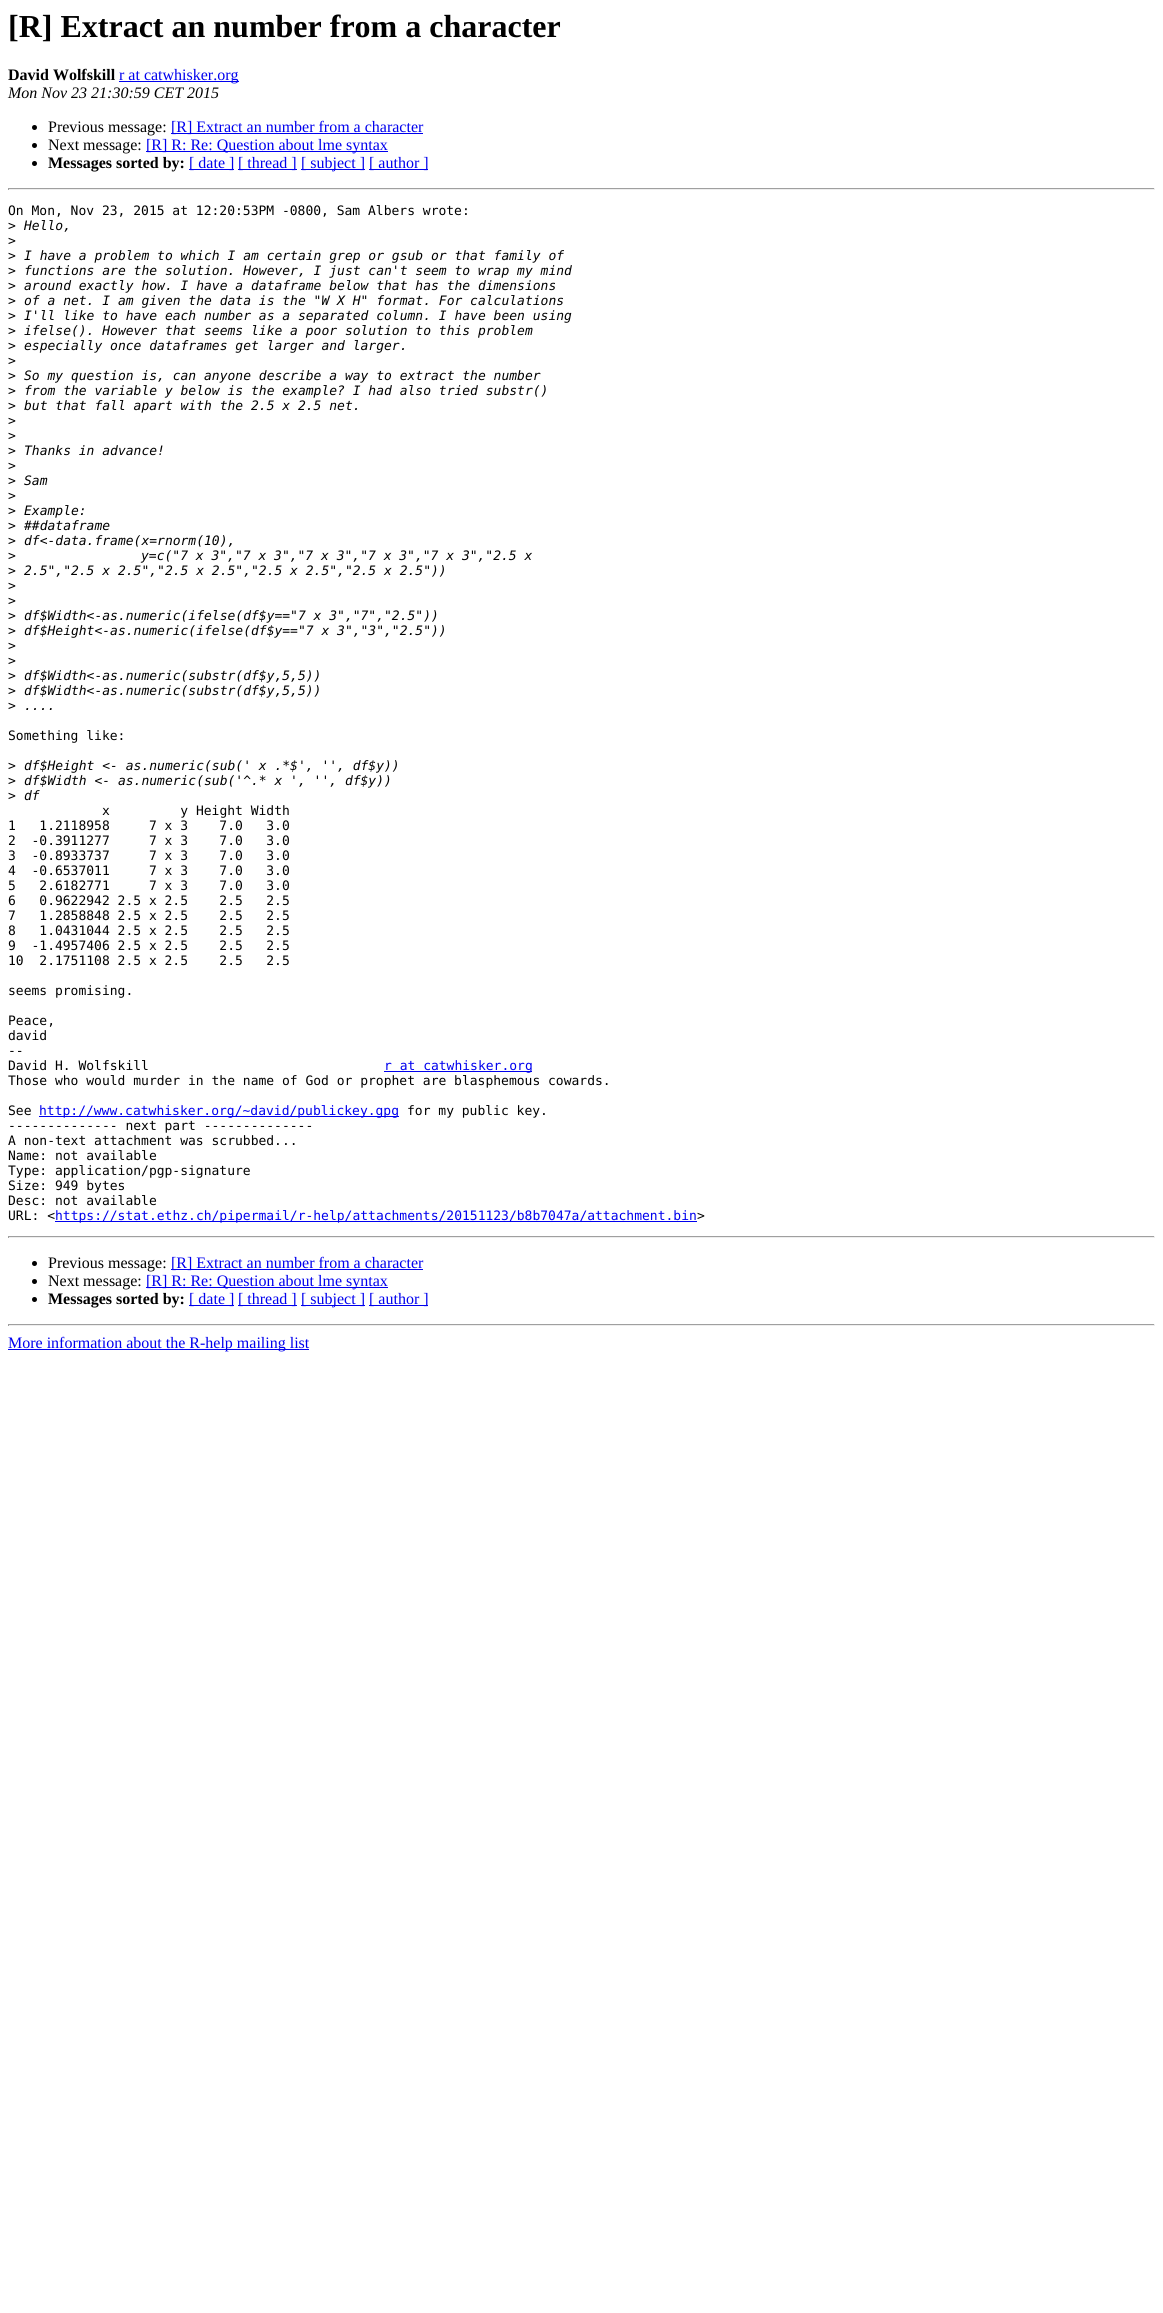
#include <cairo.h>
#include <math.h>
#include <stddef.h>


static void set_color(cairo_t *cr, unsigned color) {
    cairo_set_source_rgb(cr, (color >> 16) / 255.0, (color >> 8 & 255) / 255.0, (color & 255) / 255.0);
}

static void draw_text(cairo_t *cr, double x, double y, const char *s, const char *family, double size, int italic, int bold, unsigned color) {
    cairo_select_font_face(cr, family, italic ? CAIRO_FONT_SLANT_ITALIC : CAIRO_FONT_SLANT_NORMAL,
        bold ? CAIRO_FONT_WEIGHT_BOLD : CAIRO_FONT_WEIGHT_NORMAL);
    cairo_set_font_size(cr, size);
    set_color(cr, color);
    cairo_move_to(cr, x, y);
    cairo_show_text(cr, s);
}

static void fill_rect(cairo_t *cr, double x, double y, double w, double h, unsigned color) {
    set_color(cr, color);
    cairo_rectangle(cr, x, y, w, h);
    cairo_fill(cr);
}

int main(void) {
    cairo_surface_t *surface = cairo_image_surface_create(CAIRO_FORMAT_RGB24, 1163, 2313);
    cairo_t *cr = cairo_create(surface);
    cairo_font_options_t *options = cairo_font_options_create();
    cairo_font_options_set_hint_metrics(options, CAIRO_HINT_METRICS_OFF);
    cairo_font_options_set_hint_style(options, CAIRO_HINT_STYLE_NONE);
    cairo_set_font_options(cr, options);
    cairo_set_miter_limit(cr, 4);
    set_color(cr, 0xFFFFFF);
    cairo_paint(cr);
    draw_text(cr, 8, 37, "[R] Extract an number from a character", "Liberation Serif", 32, 0, 1, 0x000000);
    draw_text(cr, 8, 80, "David Wolfskill", "Liberation Serif", 16, 0, 1, 0x000000);
    fill_rect(cr, 119, 81, 120, 1, 0x0000EE);
    draw_text(cr, 119, 80, "r at catwhisker.org", "Liberation Serif", 16, 0, 0, 0x0000EE);
    draw_text(cr, 8, 98, "Mon Nov 23 21:30:59 CET 2015", "Liberation Serif", 16, 1, 0, 0x000000);
    cairo_new_path(cr);
    cairo_arc(cr, 34.5, 127.5, 2.5, 0, 2 * M_PI);
    cairo_fill(cr);
    draw_text(cr, 48, 132, "Previous message:", "Liberation Serif", 16, 0, 0, 0x000000);
    fill_rect(cr, 171, 133, 252, 1, 0x0000EE);
    draw_text(cr, 171, 132, "[R] Extract an number from a character", "Liberation Serif", 16, 0, 0, 0x0000EE);
    set_color(cr, 0x000000);
    cairo_new_path(cr);
    cairo_arc(cr, 34.5, 145.5, 2.5, 0, 2 * M_PI);
    cairo_fill(cr);
    draw_text(cr, 48, 150, "Next message:", "Liberation Serif", 16, 0, 0, 0x000000);
    fill_rect(cr, 146, 151, 242, 1, 0x0000EE);
    draw_text(cr, 146, 150, "[R] R: Re: Question about lme syntax", "Liberation Serif", 16, 0, 0, 0x0000EE);
    set_color(cr, 0x000000);
    cairo_new_path(cr);
    cairo_arc(cr, 34.5, 163.5, 2.5, 0, 2 * M_PI);
    cairo_fill(cr);
    draw_text(cr, 48, 168, "Messages sorted by:", "Liberation Serif", 16, 0, 1, 0x000000);
    fill_rect(cr, 189, 169, 45, 1, 0x0000EE);
    draw_text(cr, 189, 168, "[ date ]", "Liberation Serif", 16, 0, 0, 0x0000EE);
    fill_rect(cr, 238, 169, 59, 1, 0x0000EE);
    draw_text(cr, 238, 168, "[ thread ]", "Liberation Serif", 16, 0, 0, 0x0000EE);
    fill_rect(cr, 301, 169, 64, 1, 0x0000EE);
    draw_text(cr, 301, 168, "[ subject ]", "Liberation Serif", 16, 0, 0, 0x0000EE);
    fill_rect(cr, 369, 169, 59, 1, 0x0000EE);
    draw_text(cr, 369, 168, "[ author ]", "Liberation Serif", 16, 0, 0, 0x0000EE);
    fill_rect(cr, 8, 188, 1147, 1, 0x9F9F9F);
    fill_rect(cr, 1154, 188, 1, 2, 0xEEEEEE);
    fill_rect(cr, 8, 189, 1147, 1, 0xEEEEEE);
    fill_rect(cr, 8, 188, 1, 2, 0x9F9F9F);
    draw_text(cr, 8, 215, "On Mon, Nov 23, 2015 at 12:20:53PM -0800, Sam Albers wrote:", "DejaVu Sans Mono", 13, 0, 0, 0x000000);
    draw_text(cr, 8, 230, ">", "DejaVu Sans Mono", 13, 0, 0, 0x000000);
    draw_text(cr, 24, 230, "Hello,", "DejaVu Sans Mono", 13, 1, 0, 0x000000);
    draw_text(cr, 8, 245, ">", "DejaVu Sans Mono", 13, 0, 0, 0x000000);
    draw_text(cr, 8, 260, ">", "DejaVu Sans Mono", 13, 0, 0, 0x000000);
    draw_text(cr, 24, 260, "I have a problem to which I am certain grep or gsub or that family of", "DejaVu Sans Mono", 13, 1, 0, 0x000000);
    draw_text(cr, 8, 275, ">", "DejaVu Sans Mono", 13, 0, 0, 0x000000);
    draw_text(cr, 24, 275, "functions are the solution. However, I just can't seem to wrap my mind", "DejaVu Sans Mono", 13, 1, 0, 0x000000);
    draw_text(cr, 8, 290, ">", "DejaVu Sans Mono", 13, 0, 0, 0x000000);
    draw_text(cr, 24, 290, "around exactly how. I have a dataframe below that has the dimensions", "DejaVu Sans Mono", 13, 1, 0, 0x000000);
    draw_text(cr, 8, 305, ">", "DejaVu Sans Mono", 13, 0, 0, 0x000000);
    draw_text(cr, 24, 305, "of a net. I am given the data is the \"W X H\" format. For calculations", "DejaVu Sans Mono", 13, 1, 0, 0x000000);
    draw_text(cr, 8, 320, ">", "DejaVu Sans Mono", 13, 0, 0, 0x000000);
    draw_text(cr, 24, 320, "I'll like to have each number as a separated column. I have been using", "DejaVu Sans Mono", 13, 1, 0, 0x000000);
    draw_text(cr, 8, 335, ">", "DejaVu Sans Mono", 13, 0, 0, 0x000000);
    draw_text(cr, 24, 335, "ifelse(). However that seems like a poor solution to this problem", "DejaVu Sans Mono", 13, 1, 0, 0x000000);
    draw_text(cr, 8, 350, ">", "DejaVu Sans Mono", 13, 0, 0, 0x000000);
    draw_text(cr, 24, 350, "especially once dataframes get larger and larger.", "DejaVu Sans Mono", 13, 1, 0, 0x000000);
    draw_text(cr, 8, 365, ">", "DejaVu Sans Mono", 13, 0, 0, 0x000000);
    draw_text(cr, 8, 380, ">", "DejaVu Sans Mono", 13, 0, 0, 0x000000);
    draw_text(cr, 24, 380, "So my question is, can anyone describe a way to extract the number", "DejaVu Sans Mono", 13, 1, 0, 0x000000);
    draw_text(cr, 8, 395, ">", "DejaVu Sans Mono", 13, 0, 0, 0x000000);
    draw_text(cr, 24, 395, "from the variable y below is the example? I had also tried substr()", "DejaVu Sans Mono", 13, 1, 0, 0x000000);
    draw_text(cr, 8, 410, ">", "DejaVu Sans Mono", 13, 0, 0, 0x000000);
    draw_text(cr, 24, 410, "but that fall apart with the 2.5 x 2.5 net.", "DejaVu Sans Mono", 13, 1, 0, 0x000000);
    draw_text(cr, 8, 425, ">", "DejaVu Sans Mono", 13, 0, 0, 0x000000);
    draw_text(cr, 8, 440, ">", "DejaVu Sans Mono", 13, 0, 0, 0x000000);
    draw_text(cr, 8, 455, ">", "DejaVu Sans Mono", 13, 0, 0, 0x000000);
    draw_text(cr, 24, 455, "Thanks in advance!", "DejaVu Sans Mono", 13, 1, 0, 0x000000);
    draw_text(cr, 8, 470, ">", "DejaVu Sans Mono", 13, 0, 0, 0x000000);
    draw_text(cr, 8, 485, ">", "DejaVu Sans Mono", 13, 0, 0, 0x000000);
    draw_text(cr, 24, 485, "Sam", "DejaVu Sans Mono", 13, 1, 0, 0x000000);
    draw_text(cr, 8, 500, ">", "DejaVu Sans Mono", 13, 0, 0, 0x000000);
    draw_text(cr, 8, 515, ">", "DejaVu Sans Mono", 13, 0, 0, 0x000000);
    draw_text(cr, 24, 515, "Example:", "DejaVu Sans Mono", 13, 1, 0, 0x000000);
    draw_text(cr, 8, 530, ">", "DejaVu Sans Mono", 13, 0, 0, 0x000000);
    draw_text(cr, 24, 530, "##dataframe", "DejaVu Sans Mono", 13, 1, 0, 0x000000);
    draw_text(cr, 8, 545, ">", "DejaVu Sans Mono", 13, 0, 0, 0x000000);
    draw_text(cr, 24, 545, "df<-data.frame(x=rnorm(10),", "DejaVu Sans Mono", 13, 1, 0, 0x000000);
    draw_text(cr, 8, 560, ">", "DejaVu Sans Mono", 13, 0, 0, 0x000000);
    draw_text(cr, 141, 560, "y=c(\"7 x 3\",\"7 x 3\",\"7 x 3\",\"7 x 3\",\"7 x 3\",\"2.5 x", "DejaVu Sans Mono", 13, 1, 0, 0x000000);
    draw_text(cr, 8, 575, ">", "DejaVu Sans Mono", 13, 0, 0, 0x000000);
    draw_text(cr, 24, 575, "2.5\",\"2.5 x 2.5\",\"2.5 x 2.5\",\"2.5 x 2.5\",\"2.5 x 2.5\"))", "DejaVu Sans Mono", 13, 1, 0, 0x000000);
    draw_text(cr, 8, 590, ">", "DejaVu Sans Mono", 13, 0, 0, 0x000000);
    draw_text(cr, 8, 605, ">", "DejaVu Sans Mono", 13, 0, 0, 0x000000);
    draw_text(cr, 8, 620, ">", "DejaVu Sans Mono", 13, 0, 0, 0x000000);
    draw_text(cr, 24, 620, "df$Width<-as.numeric(ifelse(df$y==\"7 x 3\",\"7\",\"2.5\"))", "DejaVu Sans Mono", 13, 1, 0, 0x000000);
    draw_text(cr, 8, 635, ">", "DejaVu Sans Mono", 13, 0, 0, 0x000000);
    draw_text(cr, 24, 635, "df$Height<-as.numeric(ifelse(df$y==\"7 x 3\",\"3\",\"2.5\"))", "DejaVu Sans Mono", 13, 1, 0, 0x000000);
    draw_text(cr, 8, 650, ">", "DejaVu Sans Mono", 13, 0, 0, 0x000000);
    draw_text(cr, 8, 665, ">", "DejaVu Sans Mono", 13, 0, 0, 0x000000);
    draw_text(cr, 8, 680, ">", "DejaVu Sans Mono", 13, 0, 0, 0x000000);
    draw_text(cr, 24, 680, "df$Width<-as.numeric(substr(df$y,5,5))", "DejaVu Sans Mono", 13, 1, 0, 0x000000);
    draw_text(cr, 8, 695, ">", "DejaVu Sans Mono", 13, 0, 0, 0x000000);
    draw_text(cr, 24, 695, "df$Width<-as.numeric(substr(df$y,5,5))", "DejaVu Sans Mono", 13, 1, 0, 0x000000);
    draw_text(cr, 8, 710, ">", "DejaVu Sans Mono", 13, 0, 0, 0x000000);
    draw_text(cr, 24, 710, "....", "DejaVu Sans Mono", 13, 1, 0, 0x000000);
    draw_text(cr, 8, 740, "Something like:", "DejaVu Sans Mono", 13, 0, 0, 0x000000);
    draw_text(cr, 8, 770, ">", "DejaVu Sans Mono", 13, 0, 0, 0x000000);
    draw_text(cr, 24, 770, "df$Height <- as.numeric(sub(' x .*$', '', df$y))", "DejaVu Sans Mono", 13, 1, 0, 0x000000);
    draw_text(cr, 8, 785, ">", "DejaVu Sans Mono", 13, 0, 0, 0x000000);
    draw_text(cr, 24, 785, "df$Width <- as.numeric(sub('^.* x ', '', df$y))", "DejaVu Sans Mono", 13, 1, 0, 0x000000);
    draw_text(cr, 8, 800, ">", "DejaVu Sans Mono", 13, 0, 0, 0x000000);
    draw_text(cr, 24, 800, "df", "DejaVu Sans Mono", 13, 1, 0, 0x000000);
    draw_text(cr, 102, 815, "x         y Height Width", "DejaVu Sans Mono", 13, 0, 0, 0x000000);
    draw_text(cr, 8, 830, "1   1.2118958     7 x 3    7.0   3.0", "DejaVu Sans Mono", 13, 0, 0, 0x000000);
    draw_text(cr, 8, 845, "2  -0.3911277     7 x 3    7.0   3.0", "DejaVu Sans Mono", 13, 0, 0, 0x000000);
    draw_text(cr, 8, 860, "3  -0.8933737     7 x 3    7.0   3.0", "DejaVu Sans Mono", 13, 0, 0, 0x000000);
    draw_text(cr, 8, 875, "4  -0.6537011     7 x 3    7.0   3.0", "DejaVu Sans Mono", 13, 0, 0, 0x000000);
    draw_text(cr, 8, 890, "5   2.6182771     7 x 3    7.0   3.0", "DejaVu Sans Mono", 13, 0, 0, 0x000000);
    draw_text(cr, 8, 905, "6   0.9622942 2.5 x 2.5    2.5   2.5", "DejaVu Sans Mono", 13, 0, 0, 0x000000);
    draw_text(cr, 8, 920, "7   1.2858848 2.5 x 2.5    2.5   2.5", "DejaVu Sans Mono", 13, 0, 0, 0x000000);
    draw_text(cr, 8, 935, "8   1.0431044 2.5 x 2.5    2.5   2.5", "DejaVu Sans Mono", 13, 0, 0, 0x000000);
    draw_text(cr, 8, 950, "9  -1.4957406 2.5 x 2.5    2.5   2.5", "DejaVu Sans Mono", 13, 0, 0, 0x000000);
    draw_text(cr, 8, 965, "10  2.1751108 2.5 x 2.5    2.5   2.5", "DejaVu Sans Mono", 13, 0, 0, 0x000000);
    draw_text(cr, 8, 995, "seems promising.", "DejaVu Sans Mono", 13, 0, 0, 0x000000);
    draw_text(cr, 8, 1025, "Peace,", "DejaVu Sans Mono", 13, 0, 0, 0x000000);
    draw_text(cr, 8, 1040, "david", "DejaVu Sans Mono", 13, 0, 0, 0x000000);
    draw_text(cr, 8, 1055, "--", "DejaVu Sans Mono", 13, 0, 0, 0x000000);
    draw_text(cr, 8, 1070, "David H. Wolfskill", "DejaVu Sans Mono", 13, 0, 0, 0x000000);
    fill_rect(cr, 384, 1071, 148, 1, 0x0000EE);
    draw_text(cr, 384, 1070, "r at catwhisker.org", "DejaVu Sans Mono", 13, 0, 0, 0x0000EE);
    draw_text(cr, 8, 1085, "Those who would murder in the name of God or prophet are blasphemous cowards.", "DejaVu Sans Mono", 13, 0, 0, 0x000000);
    draw_text(cr, 8, 1115, "See", "DejaVu Sans Mono", 13, 0, 0, 0x000000);
    fill_rect(cr, 39, 1116, 360, 1, 0x0000EE);
    draw_text(cr, 39, 1115, "http://www.catwhisker.org/~david/publickey.gpg", "DejaVu Sans Mono", 13, 0, 0, 0x0000EE);
    draw_text(cr, 407, 1115, "for my public key.", "DejaVu Sans Mono", 13, 0, 0, 0x000000);
    draw_text(cr, 8, 1130, "-------------- next part --------------", "DejaVu Sans Mono", 13, 0, 0, 0x000000);
    draw_text(cr, 8, 1145, "A non-text attachment was scrubbed...", "DejaVu Sans Mono", 13, 0, 0, 0x000000);
    draw_text(cr, 8, 1160, "Name: not available", "DejaVu Sans Mono", 13, 0, 0, 0x000000);
    draw_text(cr, 8, 1175, "Type: application/pgp-signature", "DejaVu Sans Mono", 13, 0, 0, 0x000000);
    draw_text(cr, 8, 1190, "Size: 949 bytes", "DejaVu Sans Mono", 13, 0, 0, 0x000000);
    draw_text(cr, 8, 1205, "Desc: not available", "DejaVu Sans Mono", 13, 0, 0, 0x000000);
    draw_text(cr, 8, 1220, "URL: <", "DejaVu Sans Mono", 13, 0, 0, 0x000000);
    fill_rect(cr, 55, 1221, 642, 1, 0x0000EE);
    draw_text(cr, 55, 1220, "https://stat.ethz.ch/pipermail/r-help/attachments/20151123/b8b7047a/attachment.bin", "DejaVu Sans Mono", 13, 0, 0, 0x0000EE);
    draw_text(cr, 697, 1220, ">", "DejaVu Sans Mono", 13, 0, 0, 0x000000);
    fill_rect(cr, 8, 1236, 1147, 1, 0x9F9F9F);
    fill_rect(cr, 1154, 1236, 1, 2, 0xEEEEEE);
    fill_rect(cr, 8, 1237, 1147, 1, 0xEEEEEE);
    fill_rect(cr, 8, 1236, 1, 2, 0x9F9F9F);
    set_color(cr, 0x000000);
    cairo_new_path(cr);
    cairo_arc(cr, 34.5, 1263.5, 2.5, 0, 2 * M_PI);
    cairo_fill(cr);
    draw_text(cr, 48, 1268, "Previous message:", "Liberation Serif", 16, 0, 0, 0x000000);
    fill_rect(cr, 171, 1269, 252, 1, 0x0000EE);
    draw_text(cr, 171, 1268, "[R] Extract an number from a character", "Liberation Serif", 16, 0, 0, 0x0000EE);
    set_color(cr, 0x000000);
    cairo_new_path(cr);
    cairo_arc(cr, 34.5, 1281.5, 2.5, 0, 2 * M_PI);
    cairo_fill(cr);
    draw_text(cr, 48, 1286, "Next message:", "Liberation Serif", 16, 0, 0, 0x000000);
    fill_rect(cr, 146, 1287, 242, 1, 0x0000EE);
    draw_text(cr, 146, 1286, "[R] R: Re: Question about lme syntax", "Liberation Serif", 16, 0, 0, 0x0000EE);
    set_color(cr, 0x000000);
    cairo_new_path(cr);
    cairo_arc(cr, 34.5, 1299.5, 2.5, 0, 2 * M_PI);
    cairo_fill(cr);
    draw_text(cr, 48, 1304, "Messages sorted by:", "Liberation Serif", 16, 0, 1, 0x000000);
    fill_rect(cr, 189, 1305, 45, 1, 0x0000EE);
    draw_text(cr, 189, 1304, "[ date ]", "Liberation Serif", 16, 0, 0, 0x0000EE);
    fill_rect(cr, 238, 1305, 59, 1, 0x0000EE);
    draw_text(cr, 238, 1304, "[ thread ]", "Liberation Serif", 16, 0, 0, 0x0000EE);
    fill_rect(cr, 301, 1305, 64, 1, 0x0000EE);
    draw_text(cr, 301, 1304, "[ subject ]", "Liberation Serif", 16, 0, 0, 0x0000EE);
    fill_rect(cr, 369, 1305, 59, 1, 0x0000EE);
    draw_text(cr, 369, 1304, "[ author ]", "Liberation Serif", 16, 0, 0, 0x0000EE);
    fill_rect(cr, 8, 1324, 1147, 1, 0x9F9F9F);
    fill_rect(cr, 1154, 1324, 1, 2, 0xEEEEEE);
    fill_rect(cr, 8, 1325, 1147, 1, 0xEEEEEE);
    fill_rect(cr, 8, 1324, 1, 2, 0x9F9F9F);
    fill_rect(cr, 8, 1349, 301, 1, 0x0000EE);
    draw_text(cr, 8, 1348, "More information about the R-help mailing list", "Liberation Serif", 16, 0, 0, 0x0000EE);
    cairo_surface_write_to_png(surface, "output.png");
    cairo_font_options_destroy(options);
    cairo_destroy(cr);
    cairo_surface_destroy(surface);
    return 0;
}
